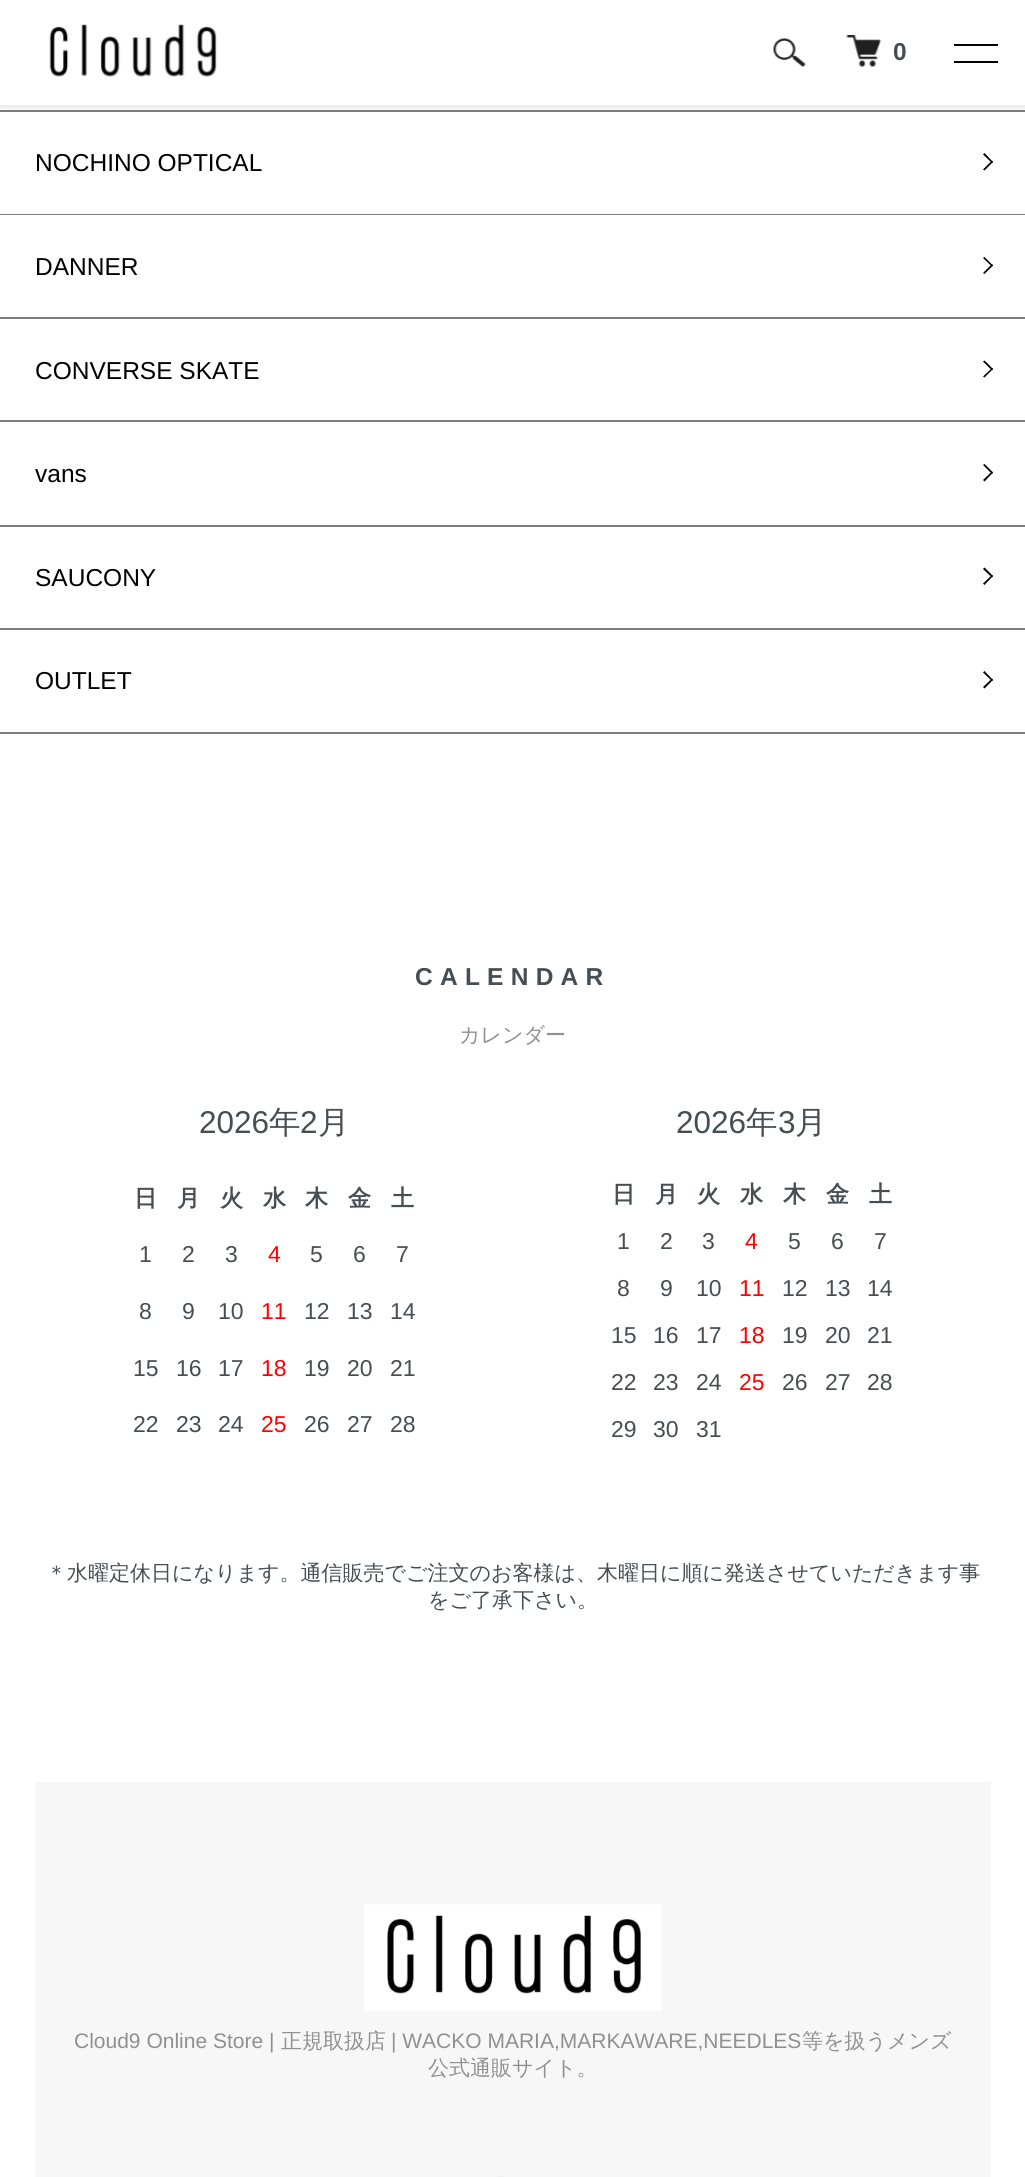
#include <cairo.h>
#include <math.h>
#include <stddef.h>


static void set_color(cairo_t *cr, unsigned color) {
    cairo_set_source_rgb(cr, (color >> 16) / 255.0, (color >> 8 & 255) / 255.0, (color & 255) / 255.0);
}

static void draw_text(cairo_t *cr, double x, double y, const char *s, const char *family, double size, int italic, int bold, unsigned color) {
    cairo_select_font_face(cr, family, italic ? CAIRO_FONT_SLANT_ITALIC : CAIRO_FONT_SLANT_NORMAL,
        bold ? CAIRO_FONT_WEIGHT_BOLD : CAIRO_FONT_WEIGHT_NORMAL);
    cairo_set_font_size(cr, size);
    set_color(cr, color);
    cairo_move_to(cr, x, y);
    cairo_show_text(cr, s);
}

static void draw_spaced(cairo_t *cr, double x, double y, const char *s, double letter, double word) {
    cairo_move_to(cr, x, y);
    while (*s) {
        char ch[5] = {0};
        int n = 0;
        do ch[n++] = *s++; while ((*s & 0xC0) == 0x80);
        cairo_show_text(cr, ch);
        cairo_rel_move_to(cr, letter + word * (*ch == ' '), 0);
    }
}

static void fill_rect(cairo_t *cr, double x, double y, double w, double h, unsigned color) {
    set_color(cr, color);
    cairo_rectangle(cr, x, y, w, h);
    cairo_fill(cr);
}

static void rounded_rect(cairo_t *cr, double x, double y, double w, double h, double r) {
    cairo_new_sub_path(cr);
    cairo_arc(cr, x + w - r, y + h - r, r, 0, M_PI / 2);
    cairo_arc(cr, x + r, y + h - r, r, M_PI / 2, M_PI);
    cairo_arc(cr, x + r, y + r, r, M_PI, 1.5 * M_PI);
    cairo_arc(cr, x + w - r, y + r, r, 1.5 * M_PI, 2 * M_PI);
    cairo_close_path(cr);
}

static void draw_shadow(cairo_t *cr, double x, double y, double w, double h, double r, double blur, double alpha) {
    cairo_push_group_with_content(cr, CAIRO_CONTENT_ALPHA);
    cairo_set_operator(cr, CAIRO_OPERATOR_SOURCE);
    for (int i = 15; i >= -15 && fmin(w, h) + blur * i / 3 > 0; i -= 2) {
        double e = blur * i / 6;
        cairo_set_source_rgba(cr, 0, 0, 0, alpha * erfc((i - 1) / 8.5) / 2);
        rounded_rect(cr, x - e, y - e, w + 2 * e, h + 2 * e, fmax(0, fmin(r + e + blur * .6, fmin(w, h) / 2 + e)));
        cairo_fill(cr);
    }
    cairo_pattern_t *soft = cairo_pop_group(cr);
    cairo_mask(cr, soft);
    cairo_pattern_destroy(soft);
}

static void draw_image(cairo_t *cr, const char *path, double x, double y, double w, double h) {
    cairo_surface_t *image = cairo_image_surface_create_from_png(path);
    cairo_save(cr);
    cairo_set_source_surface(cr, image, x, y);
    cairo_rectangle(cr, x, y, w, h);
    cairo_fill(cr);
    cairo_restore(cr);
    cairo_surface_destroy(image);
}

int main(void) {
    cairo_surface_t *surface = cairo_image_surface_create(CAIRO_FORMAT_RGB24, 1025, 2177);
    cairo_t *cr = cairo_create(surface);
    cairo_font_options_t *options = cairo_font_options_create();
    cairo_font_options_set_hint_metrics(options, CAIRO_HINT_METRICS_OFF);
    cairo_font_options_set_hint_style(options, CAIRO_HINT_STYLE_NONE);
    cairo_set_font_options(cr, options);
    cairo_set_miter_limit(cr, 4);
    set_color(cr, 0xFFFFFF);
    cairo_paint(cr);
    fill_rect(cr, 0, 110, 1025, 2, 0x7D7D7D);
    set_color(cr, 0x000000);
    draw_shadow(cr, 0, 0, 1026, 105, 0, 4.5, 0.2);
    fill_rect(cr, 0, 0, 1025, 105, 0xFFFFFF);
    draw_image(cr, "assets/img1.png", 49, 24, 168, 53);
    draw_image(cr, "assets/img2.png", 773, 38, 33, 29);
    draw_image(cr, "assets/img3.png", 846, 35, 35, 32);
    draw_text(cr, 893, 60, "0", "Liberation Sans", 24.5, 0, 1, 0x464E54);
    fill_rect(cr, 954, 44, 44, 2, 0x000000);
    fill_rect(cr, 954, 61, 44, 2, 0x000000);
    fill_rect(cr, 0, 732, 1025, 2, 0x7D7D7D);
    draw_text(cr, 35, 171, "NOCHINO OPTICAL", "Liberation Sans", 24.5, 0, 0, 0x000000);
    cairo_new_path(cr);
    cairo_move_to(cr, 983, 154.5);
    cairo_line_to(cr, 984.5, 153);
    cairo_line_to(cr, 993, 162);
    cairo_line_to(cr, 992, 163);
    cairo_close_path(cr);
    cairo_fill(cr);
    cairo_new_path(cr);
    cairo_move_to(cr, 983, 169.5);
    cairo_line_to(cr, 992, 160.5);
    cairo_line_to(cr, 993, 162);
    cairo_line_to(cr, 984.5, 170.5);
    cairo_close_path(cr);
    cairo_fill(cr);
    fill_rect(cr, 0, 214, 1025, 1, 0x7D7D7D);
    draw_text(cr, 35, 275, "DANNER", "Liberation Sans", 24.5, 0, 0, 0x000000);
    cairo_new_path(cr);
    cairo_move_to(cr, 983, 258);
    cairo_line_to(cr, 984.5, 257);
    cairo_line_to(cr, 993, 265.5);
    cairo_line_to(cr, 992, 266.5);
    cairo_close_path(cr);
    cairo_fill(cr);
    cairo_new_path(cr);
    cairo_move_to(cr, 983, 273);
    cairo_line_to(cr, 992, 264);
    cairo_line_to(cr, 993, 265.5);
    cairo_line_to(cr, 984.5, 274);
    cairo_close_path(cr);
    cairo_fill(cr);
    fill_rect(cr, 0, 317, 1025, 2, 0x7D7D7D);
    draw_text(cr, 35, 379, "CONVERSE SKATE", "Liberation Sans", 24.5, 0, 0, 0x000000);
    cairo_new_path(cr);
    cairo_move_to(cr, 983, 361.5);
    cairo_line_to(cr, 984.5, 360.5);
    cairo_line_to(cr, 993, 369);
    cairo_line_to(cr, 992, 370.5);
    cairo_close_path(cr);
    cairo_fill(cr);
    cairo_new_path(cr);
    cairo_move_to(cr, 983, 376.5);
    cairo_line_to(cr, 992, 368);
    cairo_line_to(cr, 993, 369);
    cairo_line_to(cr, 984.5, 377.5);
    cairo_close_path(cr);
    cairo_fill(cr);
    fill_rect(cr, 0, 420, 1025, 2, 0x7D7D7D);
    draw_text(cr, 35, 482, "vans", "Liberation Sans", 24.5, 0, 0, 0x000000);
    cairo_new_path(cr);
    cairo_move_to(cr, 983, 465);
    cairo_line_to(cr, 984.5, 464);
    cairo_line_to(cr, 993, 472.5);
    cairo_line_to(cr, 992, 474);
    cairo_close_path(cr);
    cairo_fill(cr);
    cairo_new_path(cr);
    cairo_move_to(cr, 983, 480);
    cairo_line_to(cr, 992, 471.5);
    cairo_line_to(cr, 993, 472.5);
    cairo_line_to(cr, 984.5, 481.5);
    cairo_close_path(cr);
    cairo_fill(cr);
    fill_rect(cr, 0, 525, 1025, 2, 0x7D7D7D);
    draw_text(cr, 35, 586, "SAUCONY", "Liberation Sans", 24.5, 0, 0, 0x000000);
    cairo_new_path(cr);
    cairo_move_to(cr, 983, 569);
    cairo_line_to(cr, 984.5, 567.5);
    cairo_line_to(cr, 993, 576);
    cairo_line_to(cr, 992, 577.5);
    cairo_close_path(cr);
    cairo_fill(cr);
    cairo_new_path(cr);
    cairo_move_to(cr, 983, 583.5);
    cairo_line_to(cr, 992, 575);
    cairo_line_to(cr, 993, 576);
    cairo_line_to(cr, 984.5, 585);
    cairo_close_path(cr);
    cairo_fill(cr);
    fill_rect(cr, 0, 628, 1025, 2, 0x7D7D7D);
    draw_text(cr, 35, 689, "OUTLET", "Liberation Sans", 24.5, 0, 0, 0x000000);
    cairo_new_path(cr);
    cairo_move_to(cr, 983, 672.5);
    cairo_line_to(cr, 984.5, 671);
    cairo_line_to(cr, 993, 680);
    cairo_line_to(cr, 992, 681);
    cairo_close_path(cr);
    cairo_fill(cr);
    cairo_new_path(cr);
    cairo_move_to(cr, 983, 687);
    cairo_line_to(cr, 992, 678.5);
    cairo_line_to(cr, 993, 680);
    cairo_line_to(cr, 984.5, 688.5);
    cairo_close_path(cr);
    cairo_fill(cr);
    cairo_select_font_face(cr, "Liberation Sans", CAIRO_FONT_SLANT_NORMAL, CAIRO_FONT_WEIGHT_BOLD);
    set_color(cr, 0x464E54);
    draw_spaced(cr, 415, 985, "CALENDAR", 7.25, 0);
    draw_text(cr, 459, 1042, "カレンダー", "WenQuanYi Zen Hei Medium", 21, 0, 0, 0x909090);
    draw_text(cr, 199, 1133, "2026", "Liberation Sans", 31.5, 0, 0, 0x464E54);
    draw_text(cr, 269, 1133, "年", "WenQuanYi Zen Hei Medium", 31.5, 0, 0, 0x464E54);
    draw_text(cr, 300, 1133, "2", "Liberation Sans", 31.5, 0, 0, 0x464E54);
    draw_text(cr, 318, 1133, "月", "WenQuanYi Zen Hei Medium", 31.5, 0, 0, 0x464E54);
    draw_text(cr, 134, 1206, "日", "WenQuanYi Zen Hei", 23, 0, 1, 0x464E54);
    draw_text(cr, 177, 1206, "月", "WenQuanYi Zen Hei", 23, 0, 1, 0x464E54);
    draw_text(cr, 220, 1206, "火", "WenQuanYi Zen Hei", 23, 0, 1, 0x464E54);
    draw_text(cr, 263, 1206, "水", "WenQuanYi Zen Hei", 23, 0, 1, 0x464E54);
    draw_text(cr, 305, 1206, "木", "WenQuanYi Zen Hei", 23, 0, 1, 0x464E54);
    draw_text(cr, 348, 1206, "金", "WenQuanYi Zen Hei", 23, 0, 1, 0x464E54);
    draw_text(cr, 391, 1206, "土", "WenQuanYi Zen Hei", 23, 0, 1, 0x464E54);
    draw_text(cr, 139, 1262, "1", "Liberation Sans", 23, 0, 0, 0x464E54);
    draw_text(cr, 182, 1262, "2", "Liberation Sans", 23, 0, 0, 0x464E54);
    draw_text(cr, 225, 1262, "3", "Liberation Sans", 23, 0, 0, 0x464E54);
    draw_text(cr, 268, 1262, "4", "Liberation Sans", 23, 0, 0, 0xFF0000);
    draw_text(cr, 310, 1262, "5", "Liberation Sans", 23, 0, 0, 0x464E54);
    draw_text(cr, 353, 1262, "6", "Liberation Sans", 23, 0, 0, 0x464E54);
    draw_text(cr, 396, 1262, "7", "Liberation Sans", 23, 0, 0, 0x464E54);
    draw_text(cr, 139, 1319, "8", "Liberation Sans", 23, 0, 0, 0x464E54);
    draw_text(cr, 182, 1319, "9", "Liberation Sans", 23, 0, 0, 0x464E54);
    draw_text(cr, 218, 1319, "10", "Liberation Sans", 23, 0, 0, 0x464E54);
    draw_text(cr, 261, 1319, "11", "Liberation Sans", 23, 0, 0, 0xFF0000);
    draw_text(cr, 304, 1319, "12", "Liberation Sans", 23, 0, 0, 0x464E54);
    draw_text(cr, 347, 1319, "13", "Liberation Sans", 23, 0, 0, 0x464E54);
    draw_text(cr, 390, 1319, "14", "Liberation Sans", 23, 0, 0, 0x464E54);
    draw_text(cr, 133, 1376, "15", "Liberation Sans", 23, 0, 0, 0x464E54);
    draw_text(cr, 176, 1376, "16", "Liberation Sans", 23, 0, 0, 0x464E54);
    draw_text(cr, 218, 1376, "17", "Liberation Sans", 23, 0, 0, 0x464E54);
    draw_text(cr, 261, 1376, "18", "Liberation Sans", 23, 0, 0, 0xFF0000);
    draw_text(cr, 304, 1376, "19", "Liberation Sans", 23, 0, 0, 0x464E54);
    draw_text(cr, 347, 1376, "20", "Liberation Sans", 23, 0, 0, 0x464E54);
    draw_text(cr, 390, 1376, "21", "Liberation Sans", 23, 0, 0, 0x464E54);
    draw_text(cr, 133, 1432, "22", "Liberation Sans", 23, 0, 0, 0x464E54);
    draw_text(cr, 176, 1432, "23", "Liberation Sans", 23, 0, 0, 0x464E54);
    draw_text(cr, 218, 1432, "24", "Liberation Sans", 23, 0, 0, 0x464E54);
    draw_text(cr, 261, 1432, "25", "Liberation Sans", 23, 0, 0, 0xFF0000);
    draw_text(cr, 304, 1432, "26", "Liberation Sans", 23, 0, 0, 0x464E54);
    draw_text(cr, 347, 1432, "27", "Liberation Sans", 23, 0, 0, 0x464E54);
    draw_text(cr, 390, 1432, "28", "Liberation Sans", 23, 0, 0, 0x464E54);
    draw_text(cr, 676, 1133, "2026", "Liberation Sans", 31.5, 0, 0, 0x464E54);
    draw_text(cr, 746, 1133, "年", "WenQuanYi Zen Hei Medium", 31.5, 0, 0, 0x464E54);
    draw_text(cr, 778, 1133, "3", "Liberation Sans", 31.5, 0, 0, 0x464E54);
    draw_text(cr, 795, 1133, "月", "WenQuanYi Zen Hei Medium", 31.5, 0, 0, 0x464E54);
    draw_text(cr, 612, 1202, "日", "WenQuanYi Zen Hei", 23, 0, 1, 0x464E54);
    draw_text(cr, 655, 1202, "月", "WenQuanYi Zen Hei", 23, 0, 1, 0x464E54);
    draw_text(cr, 697, 1202, "火", "WenQuanYi Zen Hei", 23, 0, 1, 0x464E54);
    draw_text(cr, 740, 1202, "水", "WenQuanYi Zen Hei", 23, 0, 1, 0x464E54);
    draw_text(cr, 783, 1202, "木", "WenQuanYi Zen Hei", 23, 0, 1, 0x464E54);
    draw_text(cr, 826, 1202, "金", "WenQuanYi Zen Hei", 23, 0, 1, 0x464E54);
    draw_text(cr, 869, 1202, "土", "WenQuanYi Zen Hei", 23, 0, 1, 0x464E54);
    draw_text(cr, 617, 1249, "1", "Liberation Sans", 23, 0, 0, 0x464E54);
    draw_text(cr, 660, 1249, "2", "Liberation Sans", 23, 0, 0, 0x464E54);
    draw_text(cr, 702, 1249, "3", "Liberation Sans", 23, 0, 0, 0x464E54);
    draw_text(cr, 745, 1249, "4", "Liberation Sans", 23, 0, 0, 0xFF0000);
    draw_text(cr, 788, 1249, "5", "Liberation Sans", 23, 0, 0, 0x464E54);
    draw_text(cr, 831, 1249, "6", "Liberation Sans", 23, 0, 0, 0x464E54);
    draw_text(cr, 874, 1249, "7", "Liberation Sans", 23, 0, 0, 0x464E54);
    draw_text(cr, 617, 1296, "8", "Liberation Sans", 23, 0, 0, 0x464E54);
    draw_text(cr, 660, 1296, "9", "Liberation Sans", 23, 0, 0, 0x464E54);
    draw_text(cr, 696, 1296, "10", "Liberation Sans", 23, 0, 0, 0x464E54);
    draw_text(cr, 739, 1296, "11", "Liberation Sans", 23, 0, 0, 0xFF0000);
    draw_text(cr, 782, 1296, "12", "Liberation Sans", 23, 0, 0, 0x464E54);
    draw_text(cr, 825, 1296, "13", "Liberation Sans", 23, 0, 0, 0x464E54);
    draw_text(cr, 867, 1296, "14", "Liberation Sans", 23, 0, 0, 0x464E54);
    draw_text(cr, 611, 1343, "15", "Liberation Sans", 23, 0, 0, 0x464E54);
    draw_text(cr, 653, 1343, "16", "Liberation Sans", 23, 0, 0, 0x464E54);
    draw_text(cr, 696, 1343, "17", "Liberation Sans", 23, 0, 0, 0x464E54);
    draw_text(cr, 739, 1343, "18", "Liberation Sans", 23, 0, 0, 0xFF0000);
    draw_text(cr, 782, 1343, "19", "Liberation Sans", 23, 0, 0, 0x464E54);
    draw_text(cr, 825, 1343, "20", "Liberation Sans", 23, 0, 0, 0x464E54);
    draw_text(cr, 867, 1343, "21", "Liberation Sans", 23, 0, 0, 0x464E54);
    draw_text(cr, 611, 1390, "22", "Liberation Sans", 23, 0, 0, 0x464E54);
    draw_text(cr, 653, 1390, "23", "Liberation Sans", 23, 0, 0, 0x464E54);
    draw_text(cr, 696, 1390, "24", "Liberation Sans", 23, 0, 0, 0x464E54);
    draw_text(cr, 739, 1390, "25", "Liberation Sans", 23, 0, 0, 0xFF0000);
    draw_text(cr, 782, 1390, "26", "Liberation Sans", 23, 0, 0, 0x464E54);
    draw_text(cr, 825, 1390, "27", "Liberation Sans", 23, 0, 0, 0x464E54);
    draw_text(cr, 867, 1390, "28", "Liberation Sans", 23, 0, 0, 0x464E54);
    draw_text(cr, 611, 1437, "29", "Liberation Sans", 23, 0, 0, 0x464E54);
    draw_text(cr, 653, 1437, "30", "Liberation Sans", 23, 0, 0, 0x464E54);
    draw_text(cr, 696, 1437, "31", "Liberation Sans", 23, 0, 0, 0x464E54);
    draw_text(cr, 46, 1580, "＊水曜定休日になります。通信販売でご注文のお客様は、木曜日に順に発送させていただきます事", "WenQuanYi Zen Hei Medium", 21, 0, 0, 0x464E54);
    draw_text(cr, 428, 1607, "をご了承下さい。", "WenQuanYi Zen Hei Medium", 21, 0, 0, 0x464E54);
    fill_rect(cr, 35, 1782, 956, 395, 0xF7F7F7);
    draw_image(cr, "assets/img4.png", 364, 1904, 298, 107);
    draw_text(cr, 74, 2048, "Cloud9 Online Store |", "Liberation Sans", 21, 0, 0, 0x909090);
    draw_text(cr, 281, 2048, "正規取扱店", "WenQuanYi Zen Hei Medium", 21, 0, 0, 0x909090);
    draw_text(cr, 391, 2048, "| WACKO MARIA,MARKAWARE,NEEDLES", "Liberation Sans", 21, 0, 0, 0x909090);
    draw_text(cr, 802, 2048, "等を扱うメンズ", "WenQuanYi Zen Hei Medium", 21, 0, 0, 0x909090);
    draw_text(cr, 428, 2075, "公式通販サイト。", "WenQuanYi Zen Hei Medium", 21, 0, 0, 0x909090);
    draw_image(cr, "assets/img5.png", 497, 2176, 7, 1);
    cairo_surface_write_to_png(surface, "output.png");
    cairo_font_options_destroy(options);
    cairo_destroy(cr);
    cairo_surface_destroy(surface);
    return 0;
}
